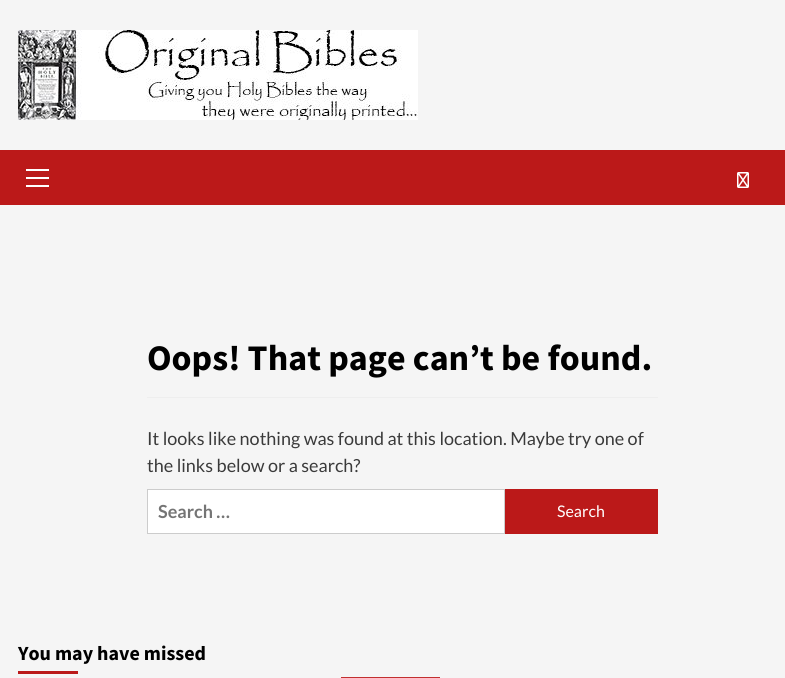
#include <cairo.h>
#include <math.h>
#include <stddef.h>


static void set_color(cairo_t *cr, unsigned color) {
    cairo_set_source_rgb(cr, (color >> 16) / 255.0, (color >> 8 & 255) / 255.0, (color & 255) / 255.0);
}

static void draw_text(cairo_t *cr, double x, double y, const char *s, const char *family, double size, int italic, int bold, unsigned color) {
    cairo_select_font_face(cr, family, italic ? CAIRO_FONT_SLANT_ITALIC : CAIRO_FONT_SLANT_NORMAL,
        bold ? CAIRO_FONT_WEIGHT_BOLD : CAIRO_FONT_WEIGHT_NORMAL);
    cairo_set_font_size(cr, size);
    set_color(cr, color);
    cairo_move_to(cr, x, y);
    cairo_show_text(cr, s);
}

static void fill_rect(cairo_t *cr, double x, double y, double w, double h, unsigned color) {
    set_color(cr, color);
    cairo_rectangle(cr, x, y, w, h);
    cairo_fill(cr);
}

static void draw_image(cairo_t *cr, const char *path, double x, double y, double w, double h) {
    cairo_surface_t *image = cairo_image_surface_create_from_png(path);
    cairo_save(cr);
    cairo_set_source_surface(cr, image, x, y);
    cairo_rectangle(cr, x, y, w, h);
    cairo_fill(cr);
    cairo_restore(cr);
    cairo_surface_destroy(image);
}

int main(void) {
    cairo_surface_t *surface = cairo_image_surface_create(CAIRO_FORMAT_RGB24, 785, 678);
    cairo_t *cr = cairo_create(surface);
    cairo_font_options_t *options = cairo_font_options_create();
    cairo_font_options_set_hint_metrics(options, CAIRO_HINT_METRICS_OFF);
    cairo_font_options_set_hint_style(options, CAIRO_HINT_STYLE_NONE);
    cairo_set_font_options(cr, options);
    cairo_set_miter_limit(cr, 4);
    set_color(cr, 0xF5F5F5);
    cairo_paint(cr);
    draw_image(cr, "assets/img1.png", 18, 30, 400, 90);
    fill_rect(cr, 0, 150, 785, 55, 0xBB1919);
    fill_rect(cr, 26, 177, 23, 2, 0xFFFFFF);
    fill_rect(cr, 26, 169, 23, 2, 0xFFFFFF);
    fill_rect(cr, 26, 185, 23, 2, 0xFFFFFF);
    draw_image(cr, "assets/img2.png", 737, 172, 12, 16);
    fill_rect(cr, 147, 397, 511, 1, 0xEEEEEE);
    draw_text(cr, 147, 370, "Oops! That page can’t be found.", "Source Sans Pro", 36, 0, 1, 0x000000);
    draw_text(cr, 147, 445, "It looks like nothing was found at this location. Maybe try one of", "Lato", 18, 0, 0, 0x3A3A3A);
    draw_text(cr, 147, 472, "the links below or a search?", "Lato", 18, 0, 0, 0x3A3A3A);
    set_color(cr, 0xFFFFFF);
    cairo_rectangle(cr, 147.5, 489.5, 357, 44);
    cairo_fill_preserve(cr);
    set_color(cr, 0xCCCCCC);
    cairo_set_line_width(cr, 1);
    cairo_stroke(cr);
    draw_text(cr, 158, 518, "Search …", "Lato", 18, 0, 1, 0x757575);
    fill_rect(cr, 505, 489, 153, 45, 0xBB1919);
    draw_text(cr, 557, 517, "Search", "Lato", 16, 0, 0, 0xFFFFFF);
    draw_text(cr, 18, 660, "You may have missed", "Source Sans Pro", 20, 0, 1, 0x000000);
    fill_rect(cr, 18, 671, 60, 3, 0xBB1919);
    fill_rect(cr, 341, 677, 99, 1, 0xC12F2F);
    cairo_surface_write_to_png(surface, "output.png");
    cairo_font_options_destroy(options);
    cairo_destroy(cr);
    cairo_surface_destroy(surface);
    return 0;
}
